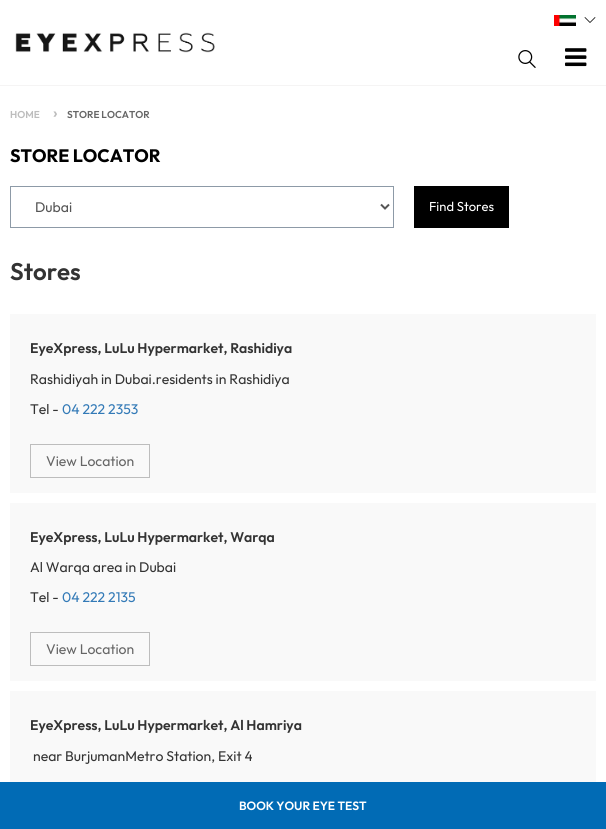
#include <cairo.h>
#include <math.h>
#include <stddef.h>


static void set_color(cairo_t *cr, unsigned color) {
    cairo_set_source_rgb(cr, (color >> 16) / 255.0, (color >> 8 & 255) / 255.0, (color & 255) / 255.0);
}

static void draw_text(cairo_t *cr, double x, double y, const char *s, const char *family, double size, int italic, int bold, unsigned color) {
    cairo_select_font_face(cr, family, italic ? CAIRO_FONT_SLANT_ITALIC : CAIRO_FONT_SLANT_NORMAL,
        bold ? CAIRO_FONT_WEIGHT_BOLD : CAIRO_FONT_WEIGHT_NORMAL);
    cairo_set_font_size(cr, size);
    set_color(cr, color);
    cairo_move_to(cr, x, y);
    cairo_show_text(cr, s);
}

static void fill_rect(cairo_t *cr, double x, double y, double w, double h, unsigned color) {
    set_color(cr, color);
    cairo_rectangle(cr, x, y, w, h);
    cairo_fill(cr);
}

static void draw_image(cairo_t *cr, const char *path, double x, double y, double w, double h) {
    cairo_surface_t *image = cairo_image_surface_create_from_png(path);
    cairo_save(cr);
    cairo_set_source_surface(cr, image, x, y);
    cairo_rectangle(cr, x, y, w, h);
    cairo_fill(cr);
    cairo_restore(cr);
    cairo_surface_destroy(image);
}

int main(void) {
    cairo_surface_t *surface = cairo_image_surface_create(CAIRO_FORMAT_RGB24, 606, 829);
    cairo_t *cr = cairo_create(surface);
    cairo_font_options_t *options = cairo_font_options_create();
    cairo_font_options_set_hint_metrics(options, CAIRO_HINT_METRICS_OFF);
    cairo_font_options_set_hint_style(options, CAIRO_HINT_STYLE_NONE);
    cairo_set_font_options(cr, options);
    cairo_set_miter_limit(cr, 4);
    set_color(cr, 0xFFFFFF);
    cairo_paint(cr);
    draw_text(cr, 10, 118, "HOME", "Outfit SemiBold", 10, 0, 0, 0xBDBDBD);
    draw_text(cr, 53, 118, "›", "Outfit SemiBold", 16, 0, 0, 0xBDBDBD);
    draw_text(cr, 67, 118, "STORE LOCATOR", "Outfit SemiBold", 10, 0, 0, 0x666666);
    draw_text(cr, 10, 162, "STORE LOCATOR", "Outfit", 18, 0, 1, 0x000000);
    cairo_rectangle(cr, 10.5, 186.5, 383, 41);
    set_color(cr, 0x8D9AA7);
    cairo_set_line_width(cr, 1);
    cairo_stroke(cr);
    cairo_new_path(cr);
    cairo_move_to(cr, 381, 204.5);
    cairo_line_to(cr, 385, 208.5);
    cairo_line_to(cr, 389, 204.5);
    set_color(cr, 0x555555);
    cairo_set_line_width(cr, 2);
    cairo_stroke(cr);
    draw_text(cr, 35, 212, "Dubai", "Outfit", 14, 0, 0, 0x555555);
    fill_rect(cr, 414, 186, 95, 42, 0x000000);
    draw_text(cr, 429, 211, "Find Stores", "Outfit", 13, 0, 0, 0xFFFFFF);
    draw_text(cr, 10, 280, "Stores", "Outfit SemiBold", 24, 0, 0, 0x333333);
    fill_rect(cr, 10, 314, 586, 179, 0xF9F9F9);
    draw_text(cr, 30, 353, "EyeXpress, LuLu Hypermarket, Rashidiya", "Outfit SemiBold", 14, 0, 0, 0x333333);
    draw_text(cr, 30, 384, "Rashidiyah in Dubai.residents in Rashidiya", "Outfit", 14, 0, 0, 0x333333);
    draw_text(cr, 30, 414, "Tel -", "Outfit", 14, 0, 0, 0x333333);
    draw_text(cr, 62, 414, "04 222 2353", "Outfit", 14, 0, 0, 0x337AB7);
    cairo_rectangle(cr, 30.5, 444.5, 119, 33);
    set_color(cr, 0xBDBDBD);
    cairo_set_line_width(cr, 1);
    cairo_stroke(cr);
    draw_text(cr, 46, 466, "View Location", "Outfit", 14, 0, 0, 0x666666);
    fill_rect(cr, 10, 503, 586, 178, 0xF9F9F9);
    draw_text(cr, 30, 542, "EyeXpress, LuLu Hypermarket, Warqa", "Outfit SemiBold", 14, 0, 0, 0x333333);
    draw_text(cr, 30, 572, "Al Warqa area in Dubai", "Outfit", 14, 0, 0, 0x333333);
    draw_text(cr, 30, 602, "Tel -", "Outfit", 14, 0, 0, 0x333333);
    draw_text(cr, 62, 602, "04 222 2135", "Outfit", 14, 0, 0, 0x337AB7);
    cairo_rectangle(cr, 30.5, 632.5, 119, 33);
    set_color(cr, 0xBDBDBD);
    cairo_stroke(cr);
    draw_text(cr, 46, 654, "View Location", "Outfit", 14, 0, 0, 0x666666);
    fill_rect(cr, 10, 691, 586, 91, 0xF9F9F9);
    draw_text(cr, 30, 730, "EyeXpress, LuLu Hypermarket, Al Hamriya", "Outfit SemiBold", 14, 0, 0, 0x333333);
    draw_text(cr, 33, 761, "near BurjumanMetro Station, Exit 4", "Outfit", 14, 0, 0, 0x333333);
    fill_rect(cr, 0, 85, 606, 1, 0xF5F4F4);
    draw_image(cr, "assets/img1.png", 15, 32, 200, 21);
    draw_image(cr, "assets/img2.png", 518, 50, 18, 18);
    draw_image(cr, "assets/img3.png", 565, 48, 22, 19);
    draw_image(cr, "assets/img4.png", 554, 15, 22, 11);
    draw_image(cr, "assets/img5.png", 584, 17, 12, 6);
    fill_rect(cr, 0, 782, 606, 47, 0x016BB5);
    draw_text(cr, 239, 810, "BOOK YOUR EYE TEST", "Outfit SemiBold", 12, 0, 0, 0xFFFFFF);
    cairo_surface_write_to_png(surface, "output.png");
    cairo_font_options_destroy(options);
    cairo_destroy(cr);
    cairo_surface_destroy(surface);
    return 0;
}
